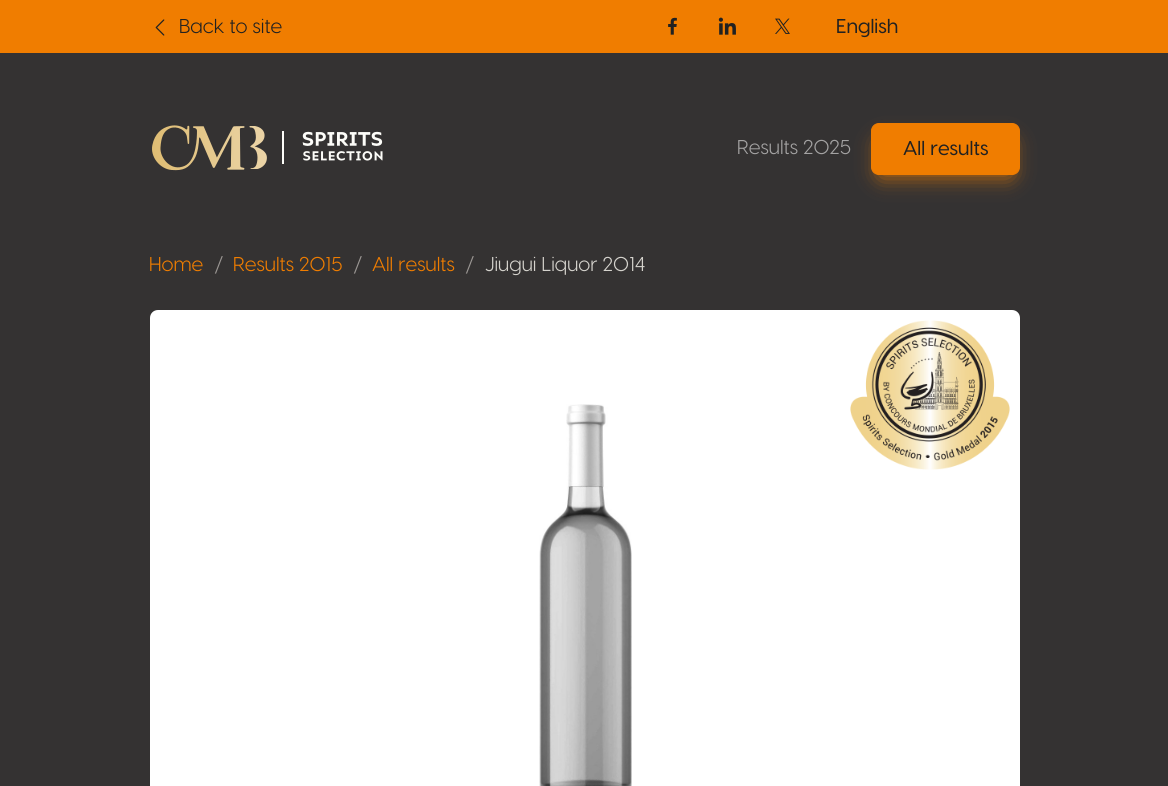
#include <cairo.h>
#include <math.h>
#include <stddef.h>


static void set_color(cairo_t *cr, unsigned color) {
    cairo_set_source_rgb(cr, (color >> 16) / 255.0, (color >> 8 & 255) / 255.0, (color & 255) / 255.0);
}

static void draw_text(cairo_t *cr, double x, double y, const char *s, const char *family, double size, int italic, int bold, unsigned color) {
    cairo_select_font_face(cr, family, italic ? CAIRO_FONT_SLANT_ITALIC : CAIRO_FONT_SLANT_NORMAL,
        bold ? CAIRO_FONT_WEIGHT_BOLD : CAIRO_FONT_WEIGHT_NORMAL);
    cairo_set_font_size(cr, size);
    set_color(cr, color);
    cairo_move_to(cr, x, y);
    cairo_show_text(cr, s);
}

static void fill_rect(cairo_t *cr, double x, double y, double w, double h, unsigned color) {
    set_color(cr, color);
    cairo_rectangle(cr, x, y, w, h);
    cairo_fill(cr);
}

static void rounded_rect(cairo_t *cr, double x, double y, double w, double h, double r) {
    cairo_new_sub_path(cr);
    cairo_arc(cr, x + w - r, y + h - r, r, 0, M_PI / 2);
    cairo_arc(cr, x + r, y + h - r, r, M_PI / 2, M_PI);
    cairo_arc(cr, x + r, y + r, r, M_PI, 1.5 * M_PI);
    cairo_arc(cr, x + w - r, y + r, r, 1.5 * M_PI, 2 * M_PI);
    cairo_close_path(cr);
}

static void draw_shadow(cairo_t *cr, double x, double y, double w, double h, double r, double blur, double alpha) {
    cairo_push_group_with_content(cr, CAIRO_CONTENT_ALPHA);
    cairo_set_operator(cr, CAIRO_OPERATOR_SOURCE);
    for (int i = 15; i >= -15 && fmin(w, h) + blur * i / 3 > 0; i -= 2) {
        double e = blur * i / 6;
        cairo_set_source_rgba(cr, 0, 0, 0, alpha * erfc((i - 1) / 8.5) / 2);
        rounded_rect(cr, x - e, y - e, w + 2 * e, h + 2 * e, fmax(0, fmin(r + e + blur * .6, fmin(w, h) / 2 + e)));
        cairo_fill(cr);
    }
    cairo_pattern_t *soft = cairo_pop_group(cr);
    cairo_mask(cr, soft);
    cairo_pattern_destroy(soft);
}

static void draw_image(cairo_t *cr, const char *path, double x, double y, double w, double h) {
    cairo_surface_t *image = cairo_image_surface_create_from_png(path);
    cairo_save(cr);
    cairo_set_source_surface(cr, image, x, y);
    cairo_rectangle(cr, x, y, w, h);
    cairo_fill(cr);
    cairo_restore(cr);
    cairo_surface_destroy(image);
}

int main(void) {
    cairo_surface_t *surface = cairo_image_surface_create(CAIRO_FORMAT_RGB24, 1168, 786);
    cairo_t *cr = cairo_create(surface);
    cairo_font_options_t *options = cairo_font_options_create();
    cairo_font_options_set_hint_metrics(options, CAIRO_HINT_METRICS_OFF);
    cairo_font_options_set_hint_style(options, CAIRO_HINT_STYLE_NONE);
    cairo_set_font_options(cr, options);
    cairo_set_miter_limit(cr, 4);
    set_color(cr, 0x343232);
    cairo_paint(cr);
    fill_rect(cr, 0, 0, 1168, 53, 0xF07D00);
    draw_image(cr, "assets/img1.png", 155, 19, 10, 17);
    draw_text(cr, 179, 33, "Back to site", "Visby", 20, 0, 0, 0x212121);
    draw_image(cr, "assets/img2.png", 668, 17, 9, 18);
    draw_image(cr, "assets/img3.png", 718, 17, 18, 18);
    draw_image(cr, "assets/img4.png", 775, 18, 15, 16);
    draw_text(cr, 836, 33, "English", "Visby Medium", 20, 0, 0, 0x212121);
    draw_image(cr, "assets/img5.png", 152, 125, 231, 46);
    draw_text(cr, 737, 154, "Results 2025", "Visby", 20, 0, 0, 0xA4A3A3);
    set_color(cr, 0xF07D00);
    draw_shadow(cr, 881, 143, 129, 32, 0, 11, 0.9);
    set_color(cr, 0xF07D00);
    rounded_rect(cr, 871.5, 123.5, 148, 51, 7.5);
    cairo_fill_preserve(cr);
    cairo_set_line_width(cr, 1);
    cairo_stroke(cr);
    draw_text(cr, 903, 155, "All results", "Visby Medium", 20, 0, 0, 0x212121);
    draw_text(cr, 149, 271, "Home", "Visby", 20, 0, 0, 0xF07D00);
    draw_text(cr, 214, 271, "/", "Visby", 20, 0, 0, 0x9A9693);
    draw_text(cr, 233, 271, "Results 2015", "Visby", 20, 0, 0, 0xF07D00);
    draw_text(cr, 353, 271, "/", "Visby", 20, 0, 0, 0x9A9693);
    draw_text(cr, 372, 271, "All results", "Visby", 20, 0, 0, 0xF07D00);
    draw_text(cr, 465, 271, "/", "Visby", 20, 0, 0, 0x9A9693);
    draw_text(cr, 485, 271, "Jiugui Liquor 2014", "Visby", 20, 0, 0, 0xD5D3CD);
    set_color(cr, 0xFFFFFF);
    cairo_new_path(cr);
    cairo_move_to(cr, 158, 310);
    cairo_line_to(cr, 1012, 310);
    cairo_curve_to(cr, 1016.5, 310, 1020, 313.5, 1020, 318);
    cairo_line_to(cr, 1020, 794);
    cairo_line_to(cr, 150, 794);
    cairo_line_to(cr, 150, 318);
    cairo_curve_to(cr, 150, 313.5, 153.5, 310, 158, 310);
    cairo_close_path(cr);
    cairo_fill(cr);
    draw_image(cr, "assets/img6.png", 539, 404, 93, 382);
    draw_image(cr, "assets/img7.png", 850, 320, 160, 150);
    cairo_surface_write_to_png(surface, "output.png");
    cairo_font_options_destroy(options);
    cairo_destroy(cr);
    cairo_surface_destroy(surface);
    return 0;
}
